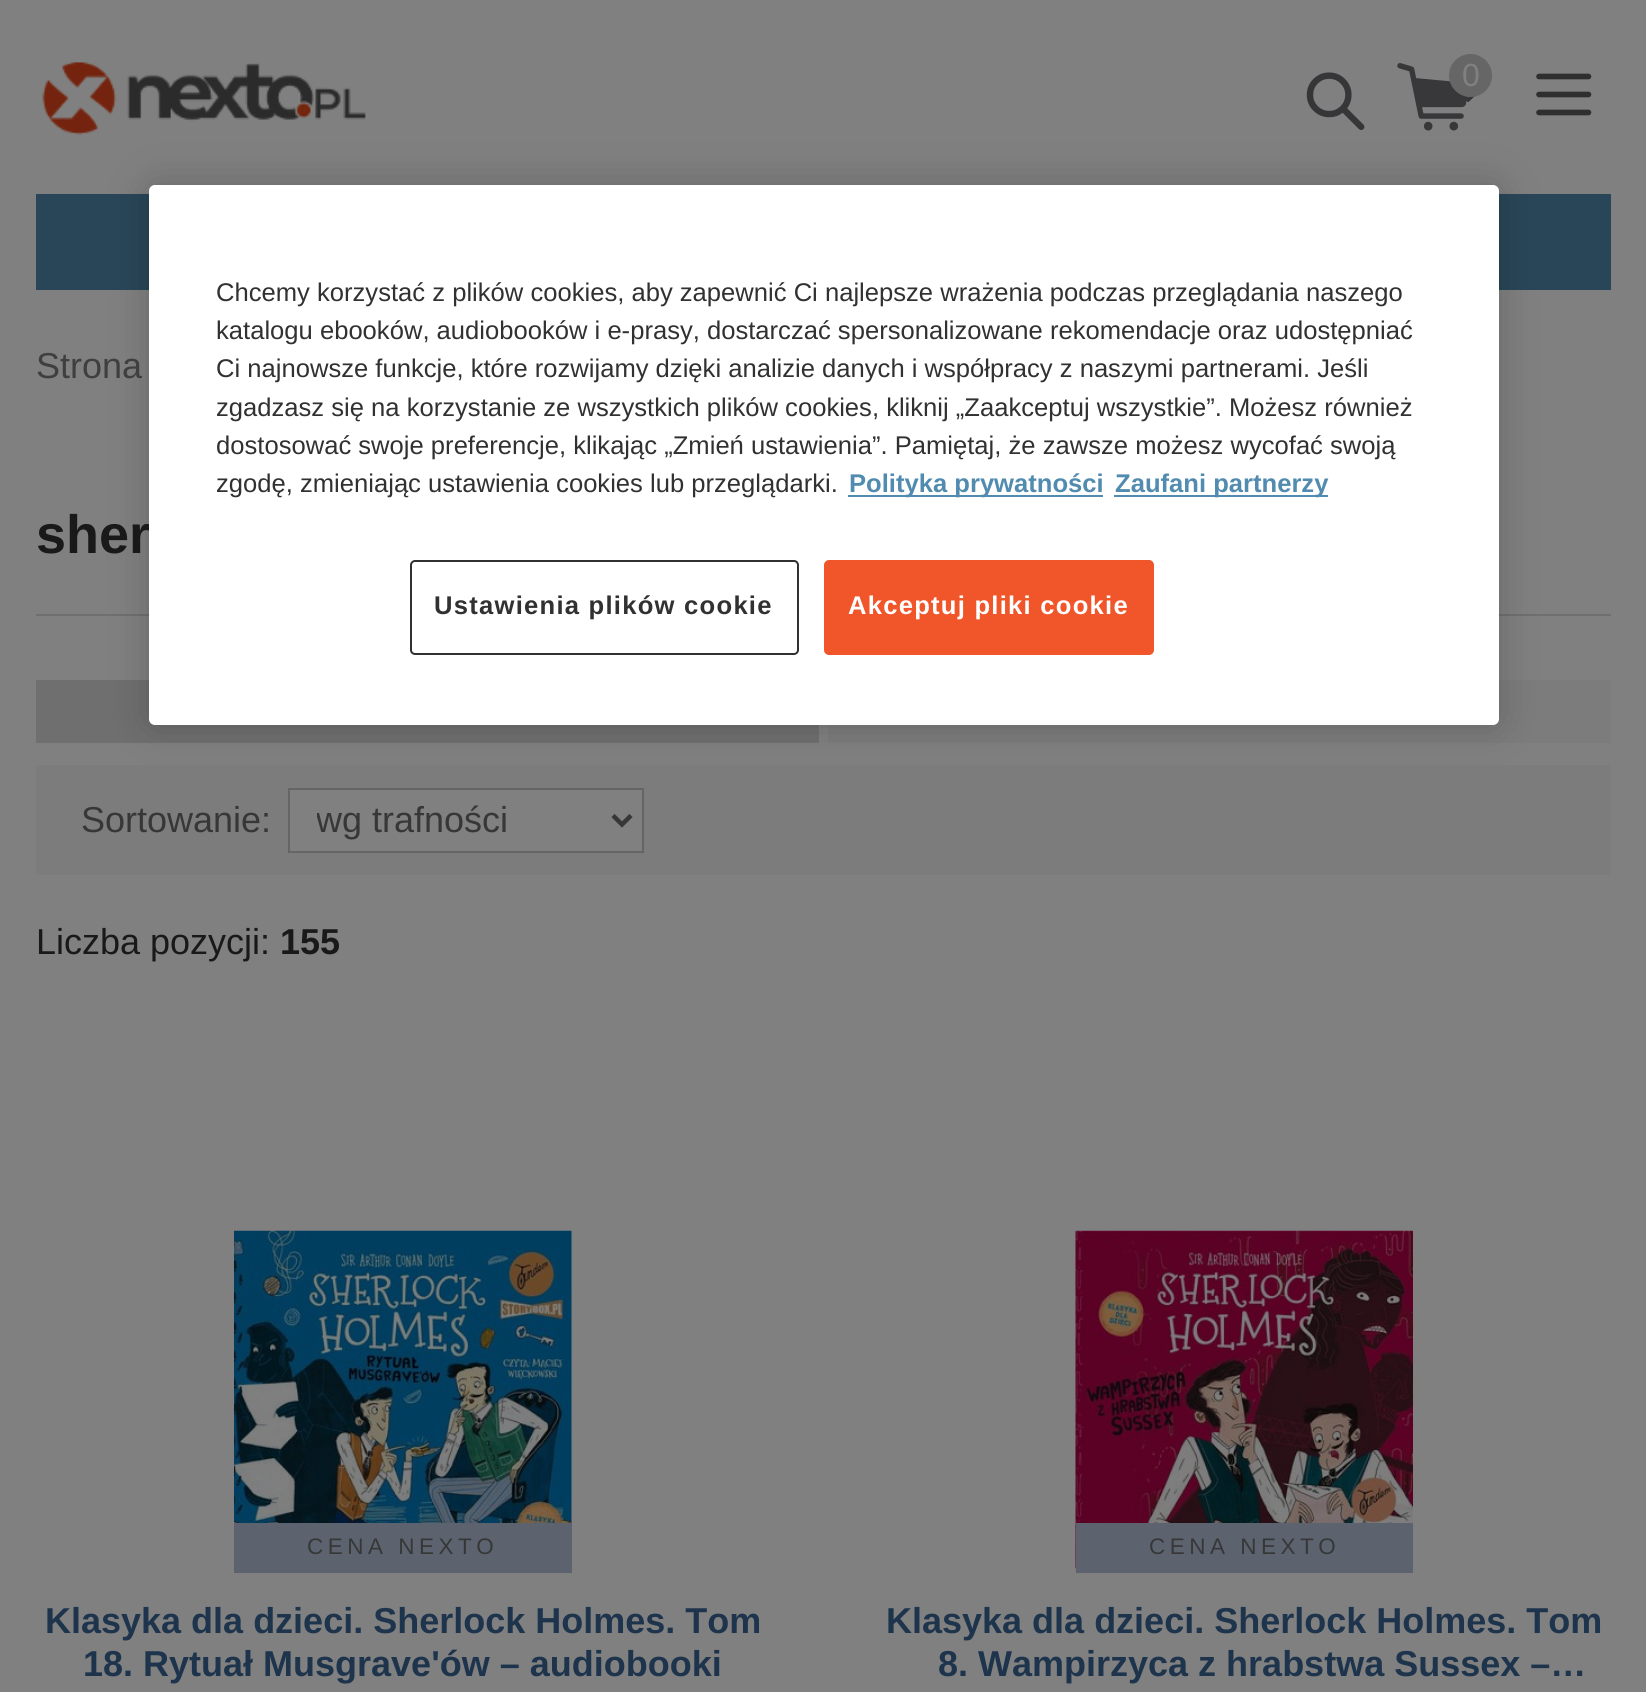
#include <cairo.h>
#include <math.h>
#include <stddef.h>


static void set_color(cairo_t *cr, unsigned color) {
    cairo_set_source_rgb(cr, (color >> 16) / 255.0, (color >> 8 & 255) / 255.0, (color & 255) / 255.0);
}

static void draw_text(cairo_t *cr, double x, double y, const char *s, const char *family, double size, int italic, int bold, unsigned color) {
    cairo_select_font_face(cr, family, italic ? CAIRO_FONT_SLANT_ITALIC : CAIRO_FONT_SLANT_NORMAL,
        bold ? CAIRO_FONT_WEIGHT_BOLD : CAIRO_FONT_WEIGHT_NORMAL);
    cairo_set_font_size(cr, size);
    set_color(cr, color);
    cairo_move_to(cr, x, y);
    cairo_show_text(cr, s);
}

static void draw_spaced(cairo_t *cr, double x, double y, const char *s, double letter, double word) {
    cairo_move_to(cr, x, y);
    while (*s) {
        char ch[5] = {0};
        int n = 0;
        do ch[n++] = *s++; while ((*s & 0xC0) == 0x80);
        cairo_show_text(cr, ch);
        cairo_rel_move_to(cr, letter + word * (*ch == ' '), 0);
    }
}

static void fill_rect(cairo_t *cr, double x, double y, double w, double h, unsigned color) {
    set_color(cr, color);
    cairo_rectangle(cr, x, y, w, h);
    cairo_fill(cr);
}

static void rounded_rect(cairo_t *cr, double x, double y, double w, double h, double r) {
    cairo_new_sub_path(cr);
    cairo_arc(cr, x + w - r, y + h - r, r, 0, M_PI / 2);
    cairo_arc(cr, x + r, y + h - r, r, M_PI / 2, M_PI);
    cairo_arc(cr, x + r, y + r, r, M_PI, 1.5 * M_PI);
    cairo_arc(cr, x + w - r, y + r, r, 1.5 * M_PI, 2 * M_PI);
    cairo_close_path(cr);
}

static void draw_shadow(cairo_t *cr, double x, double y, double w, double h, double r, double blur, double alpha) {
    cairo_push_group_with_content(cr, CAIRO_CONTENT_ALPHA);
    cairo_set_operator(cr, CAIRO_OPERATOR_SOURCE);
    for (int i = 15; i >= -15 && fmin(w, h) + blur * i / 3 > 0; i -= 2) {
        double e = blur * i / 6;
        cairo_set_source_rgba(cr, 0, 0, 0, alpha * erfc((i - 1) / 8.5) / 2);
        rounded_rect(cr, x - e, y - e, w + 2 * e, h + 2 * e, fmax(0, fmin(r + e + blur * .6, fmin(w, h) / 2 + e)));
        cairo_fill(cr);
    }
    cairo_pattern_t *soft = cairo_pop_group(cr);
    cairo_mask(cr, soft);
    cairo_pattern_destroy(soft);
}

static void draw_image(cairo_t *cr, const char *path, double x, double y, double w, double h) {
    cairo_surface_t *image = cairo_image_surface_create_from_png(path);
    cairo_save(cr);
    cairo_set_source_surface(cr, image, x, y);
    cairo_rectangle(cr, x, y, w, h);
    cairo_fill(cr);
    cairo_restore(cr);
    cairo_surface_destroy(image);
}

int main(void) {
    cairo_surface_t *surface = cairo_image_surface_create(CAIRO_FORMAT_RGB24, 1646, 1692);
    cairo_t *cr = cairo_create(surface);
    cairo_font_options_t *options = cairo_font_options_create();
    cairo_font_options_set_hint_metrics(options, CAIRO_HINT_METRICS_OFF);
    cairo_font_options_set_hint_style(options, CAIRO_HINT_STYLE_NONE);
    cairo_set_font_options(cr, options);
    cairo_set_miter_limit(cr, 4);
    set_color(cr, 0x808080);
    cairo_paint(cr);
    draw_image(cr, "assets/img1.png", 42, 62, 324, 73);
    draw_image(cr, "assets/img2.png", 1306, 72, 59, 58);
    draw_image(cr, "assets/img3.png", 1466, 96, 9, 6);
    draw_image(cr, "assets/img4.png", 1397, 63, 71, 68);
    set_color(cr, 0x666666);
    cairo_arc(cr, 1470.5, 75.5, 21.5, 0, 2 * M_PI);
    cairo_fill(cr);
    draw_text(cr, 1462, 86, "0", "Liberation Sans", 32, 0, 0, 0x808080);
    cairo_new_path(cr);
    cairo_move_to(cr, 1539, 76.5);
    cairo_line_to(cr, 1588.5, 76.5);
    cairo_move_to(cr, 1539, 94.5);
    cairo_line_to(cr, 1588.5, 94.5);
    cairo_move_to(cr, 1539, 112.5);
    cairo_line_to(cr, 1588.5, 112.5);
    set_color(cr, 0x2F2F2F);
    cairo_set_line_width(cr, 5.6);
    cairo_set_line_cap(cr, CAIRO_LINE_CAP_ROUND);
    cairo_set_line_join(cr, CAIRO_LINE_JOIN_ROUND);
    cairo_stroke(cr);
    fill_rect(cr, 36, 194, 113, 96, 0x294658);
    fill_rect(cr, 1499, 194, 112, 96, 0x294658);
    fill_rect(cr, 36, 614, 1575, 2, 0x6F6F6F);
    fill_rect(cr, 36, 680, 783, 63, 0x6F6F6F);
    fill_rect(cr, 828, 680, 783, 63, 0x7C7C7C);
    fill_rect(cr, 36, 765, 1575, 110, 0x7C7C7C);
    set_color(cr, 0x000000);
    draw_shadow(cr, 149, 185, 1350, 540, 6, 20, 0.2);
    draw_text(cr, 36, 553, "sher", "Liberation Sans", 54, 0, 1, 0x191919);
    set_color(cr, 0xFFFFFF);
    rounded_rect(cr, 149, 185, 1350, 540, 6);
    cairo_fill(cr);
    draw_text(cr, 216, 301, "Chcemy korzystać z plików cookies, aby zapewnić Ci najlepsze wrażenia podczas przeglądania naszego", "Liberation Sans", 25.6, 0, 0, 0x313131);
    draw_text(cr, 216, 339, "katalogu ebooków, audiobooków i e-prasy, dostarczać spersonalizowane rekomendacje oraz udostępniać", "Liberation Sans", 25.6, 0, 0, 0x313131);
    draw_text(cr, 216, 377, "Ci najnowsze funkcje, które rozwijamy dzięki analizie danych i współpracy z naszymi partnerami. Jeśli", "Liberation Sans", 25.6, 0, 0, 0x313131);
    draw_text(cr, 216, 416, "zgadzasz się na korzystanie ze wszystkich plików cookies, kliknij „Zaakceptuj wszystkie”. Możesz również", "Liberation Sans", 25.6, 0, 0, 0x313131);
    draw_text(cr, 216, 454, "dostosować swoje preferencje, klikając „Zmień ustawienia”. Pamiętaj, że zawsze możesz wycofać swoją", "Liberation Sans", 25.6, 0, 0, 0x313131);
    draw_text(cr, 216, 492, "zgodę, zmieniając ustawienia cookies lub przeglądarki.", "Liberation Sans", 25.6, 0, 0, 0x313131);
    fill_rect(cr, 848, 495, 255, 2, 0x518BAF);
    draw_text(cr, 849, 492, "Polityka prywatności", "Liberation Sans", 25.6, 0, 1, 0x518BAF);
    fill_rect(cr, 1114, 495, 214, 2, 0x518BAF);
    draw_text(cr, 1115, 492, "Zaufani partnerzy", "Liberation Sans", 25.6, 0, 1, 0x518BAF);
    rounded_rect(cr, 411, 561, 387, 93, 4);
    set_color(cr, 0x313131);
    cairo_set_line_width(cr, 2);
    cairo_set_line_cap(cr, CAIRO_LINE_CAP_BUTT);
    cairo_set_line_join(cr, CAIRO_LINE_JOIN_MITER);
    cairo_stroke(cr);
    draw_spaced(cr, 434, 614, "Ustawienia plików cookie", 1.25, 0);
    set_color(cr, 0xF1562A);
    rounded_rect(cr, 825, 561, 328, 93, 4);
    cairo_fill_preserve(cr);
    cairo_stroke(cr);
    set_color(cr, 0xFFFFFF);
    draw_spaced(cr, 848, 614, "Akceptuj pliki cookie", 1.25, 0);
    draw_text(cr, 36, 378, "Strona", "Liberation Sans", 36, 0, 0, 0x3F3F3F);
    draw_text(cr, 81, 832, "Sortowanie:", "Liberation Sans", 36, 0, 0, 0x373738);
    set_color(cr, 0x808080);
    cairo_rectangle(cr, 289, 789, 354, 63);
    cairo_fill_preserve(cr);
    set_color(cr, 0x656565);
    cairo_stroke(cr);
    cairo_new_path(cr);
    cairo_move_to(cr, 613, 815.5);
    cairo_line_to(cr, 622, 824.5);
    cairo_line_to(cr, 631, 815.5);
    set_color(cr, 0x373738);
    cairo_set_line_width(cr, 4.5);
    cairo_stroke(cr);
    cairo_save(cr);
    cairo_rectangle(cr, 317, 799, 270, 43);
    cairo_clip(cr);
    draw_text(cr, 316, 832, "wg trafności", "Liberation Sans", 36, 0, 0, 0x373738);
    cairo_restore(cr);
    draw_text(cr, 36, 954, "Liczba pozycji:", "Liberation Sans", 36, 0, 0, 0x191919);
    draw_text(cr, 280, 954, "155", "Liberation Sans", 36, 0, 1, 0x191919);
    draw_image(cr, "assets/img5.png", 234, 1230, 338, 293);
    fill_rect(cr, 234, 1523, 338, 50, 0x5C636F);
    cairo_select_font_face(cr, "Liberation Sans", CAIRO_FONT_SLANT_NORMAL, CAIRO_FONT_WEIGHT_NORMAL);
    cairo_set_font_size(cr, 22.5);
    set_color(cr, 0x373738);
    draw_spaced(cr, 307, 1554, "CENA NEXTO", 4.5, 0);
    draw_text(cr, 45, 1633, "Klasyka dla dzieci. Sherlock Holmes. Tom", "Liberation Sans", 36, 0, 1, 0x1D344C);
    draw_text(cr, 83, 1676, "18. Rytuał Musgrave'ów – audiobooki", "Liberation Sans", 36, 0, 1, 0x1D344C);
    draw_image(cr, "assets/img6.png", 1075, 1230, 338, 339);
    fill_rect(cr, 1076, 1523, 337, 50, 0x5C636F);
    cairo_select_font_face(cr, "Liberation Sans", CAIRO_FONT_SLANT_NORMAL, CAIRO_FONT_WEIGHT_NORMAL);
    cairo_set_font_size(cr, 22.5);
    set_color(cr, 0x373738);
    draw_spaced(cr, 1149, 1554, "CENA NEXTO", 4.5, 0);
    draw_text(cr, 886, 1633, "Klasyka dla dzieci. Sherlock Holmes. Tom", "Liberation Sans", 36, 0, 1, 0x1D344C);
    draw_text(cr, 938, 1676, "8. Wampirzyca z hrabstwa Sussex –…", "Liberation Sans", 36, 0, 1, 0x1D344C);
    cairo_surface_write_to_png(surface, "output.png");
    cairo_font_options_destroy(options);
    cairo_destroy(cr);
    cairo_surface_destroy(surface);
    return 0;
}
